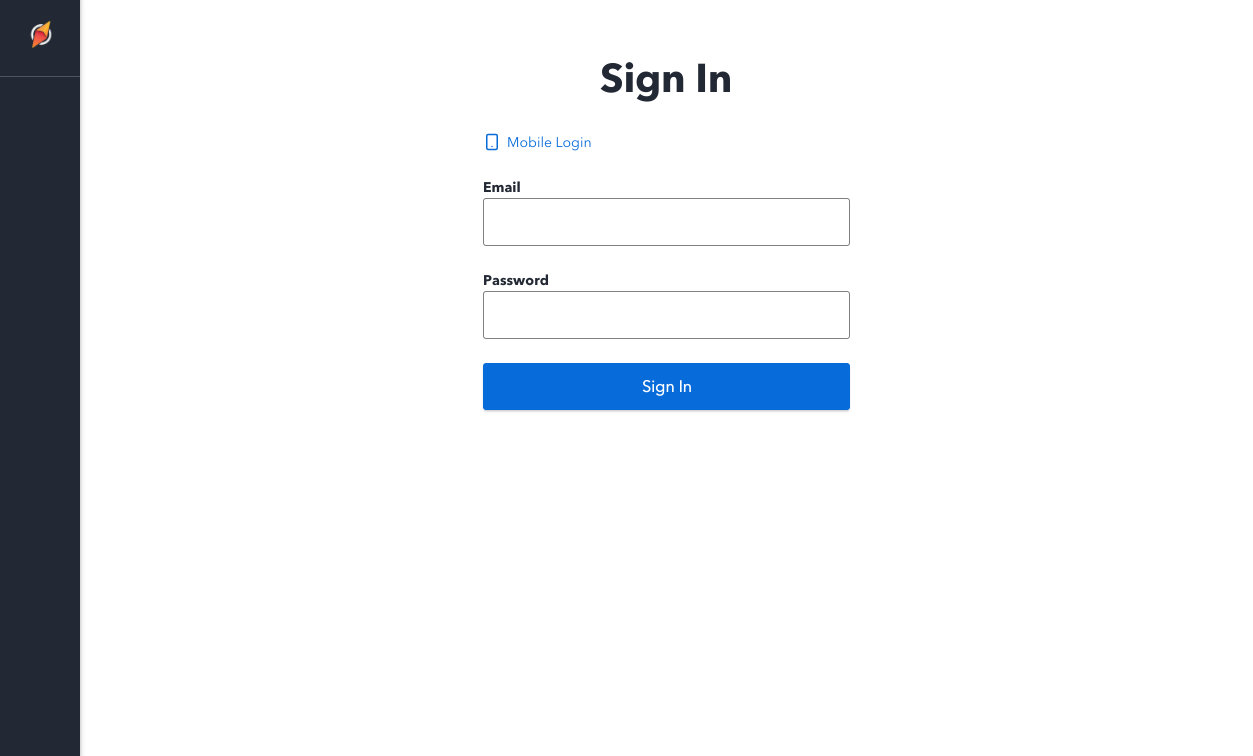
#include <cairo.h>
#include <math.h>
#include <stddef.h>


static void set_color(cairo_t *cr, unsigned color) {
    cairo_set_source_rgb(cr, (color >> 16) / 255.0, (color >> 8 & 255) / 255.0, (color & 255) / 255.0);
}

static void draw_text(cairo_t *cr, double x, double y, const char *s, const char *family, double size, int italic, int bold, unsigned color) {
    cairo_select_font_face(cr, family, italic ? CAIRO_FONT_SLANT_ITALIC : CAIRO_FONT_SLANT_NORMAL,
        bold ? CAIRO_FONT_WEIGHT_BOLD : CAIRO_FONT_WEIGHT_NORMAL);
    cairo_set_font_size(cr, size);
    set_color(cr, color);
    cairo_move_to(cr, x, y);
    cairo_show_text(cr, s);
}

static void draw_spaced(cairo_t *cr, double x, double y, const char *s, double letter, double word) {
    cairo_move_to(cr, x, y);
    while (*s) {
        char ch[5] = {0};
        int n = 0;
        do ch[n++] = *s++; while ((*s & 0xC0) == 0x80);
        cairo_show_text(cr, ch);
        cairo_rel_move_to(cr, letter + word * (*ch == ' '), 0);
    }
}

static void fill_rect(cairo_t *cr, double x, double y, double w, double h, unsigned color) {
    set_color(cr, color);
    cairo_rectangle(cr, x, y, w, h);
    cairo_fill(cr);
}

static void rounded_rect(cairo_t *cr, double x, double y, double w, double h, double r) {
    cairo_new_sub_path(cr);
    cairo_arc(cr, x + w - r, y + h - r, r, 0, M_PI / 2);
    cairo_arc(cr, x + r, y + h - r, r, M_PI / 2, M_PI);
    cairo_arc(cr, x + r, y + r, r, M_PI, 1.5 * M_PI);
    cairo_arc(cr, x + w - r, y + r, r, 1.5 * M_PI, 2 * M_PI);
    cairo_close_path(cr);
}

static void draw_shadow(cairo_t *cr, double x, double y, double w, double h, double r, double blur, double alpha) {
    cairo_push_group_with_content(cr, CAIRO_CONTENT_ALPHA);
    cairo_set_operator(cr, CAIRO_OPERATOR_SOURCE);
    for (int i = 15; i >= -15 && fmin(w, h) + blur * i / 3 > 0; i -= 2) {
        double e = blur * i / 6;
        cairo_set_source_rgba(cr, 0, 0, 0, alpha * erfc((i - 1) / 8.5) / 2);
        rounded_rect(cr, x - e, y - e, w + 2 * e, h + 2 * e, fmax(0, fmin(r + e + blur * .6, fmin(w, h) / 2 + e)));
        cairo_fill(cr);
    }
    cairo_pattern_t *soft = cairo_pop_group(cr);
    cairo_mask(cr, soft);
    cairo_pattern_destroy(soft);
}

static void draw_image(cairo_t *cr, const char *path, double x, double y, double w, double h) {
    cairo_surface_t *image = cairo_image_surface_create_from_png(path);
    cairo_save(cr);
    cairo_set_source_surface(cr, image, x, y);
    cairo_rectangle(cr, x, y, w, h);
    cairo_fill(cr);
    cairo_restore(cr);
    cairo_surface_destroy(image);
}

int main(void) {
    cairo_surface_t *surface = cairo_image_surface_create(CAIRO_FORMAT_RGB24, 1253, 756);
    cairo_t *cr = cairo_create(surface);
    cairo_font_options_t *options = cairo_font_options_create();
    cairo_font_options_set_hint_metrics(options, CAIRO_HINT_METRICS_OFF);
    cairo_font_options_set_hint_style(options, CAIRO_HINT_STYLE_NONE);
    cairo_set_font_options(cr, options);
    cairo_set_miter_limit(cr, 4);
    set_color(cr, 0xFFFFFF);
    cairo_paint(cr);
    set_color(cr, 0x000000);
    draw_shadow(cr, 2, 0, 80, 756, 0, 2.5, 0.1);
    draw_shadow(cr, 1, 0, 80, 756, 0, 1, 0.1);
    fill_rect(cr, 0, 0, 80, 756, 0x232934);
    draw_image(cr, "assets/img1.png", 30, 20, 22, 29);
    fill_rect(cr, 0, 76, 80, 1, 0x4F545D);
    cairo_select_font_face(cr, "Avenir Next", CAIRO_FONT_SLANT_NORMAL, CAIRO_FONT_WEIGHT_BOLD);
    cairo_set_font_size(cr, 40);
    set_color(cr, 0x232934);
    draw_spaced(cr, 600, 92, "Sign In", -0.25, 0);
    draw_image(cr, "assets/img2.png", 486, 133, 12, 18);
    draw_text(cr, 507, 147, "Mobile Login", "Avenir Next", 14, 0, 0, 0x076BDA);
    draw_text(cr, 483, 192, "Email", "Avenir Next", 14, 0, 1, 0x232934);
    rounded_rect(cr, 483.5, 198.5, 366, 47, 2.5);
    set_color(cr, 0x808080);
    cairo_set_line_width(cr, 1);
    cairo_stroke(cr);
    draw_text(cr, 483, 285, "Password", "Avenir Next", 14, 0, 1, 0x232934);
    rounded_rect(cr, 483.5, 291.5, 366, 47, 2.5);
    set_color(cr, 0x808080);
    cairo_stroke(cr);
    set_color(cr, 0x000000);
    draw_shadow(cr, 484, 366, 365, 45, 2, 0.5, 0.1);
    draw_shadow(cr, 483, 365, 367, 47, 3, 1, 0.1);
    set_color(cr, 0x076BDA);
    rounded_rect(cr, 483.5, 363.5, 366, 46, 2.5);
    cairo_fill_preserve(cr);
    cairo_stroke(cr);
    draw_text(cr, 642, 392, "Sign In", "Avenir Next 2", 16, 0, 1, 0xFFFFFF);
    cairo_surface_write_to_png(surface, "output.png");
    cairo_font_options_destroy(options);
    cairo_destroy(cr);
    cairo_surface_destroy(surface);
    return 0;
}
